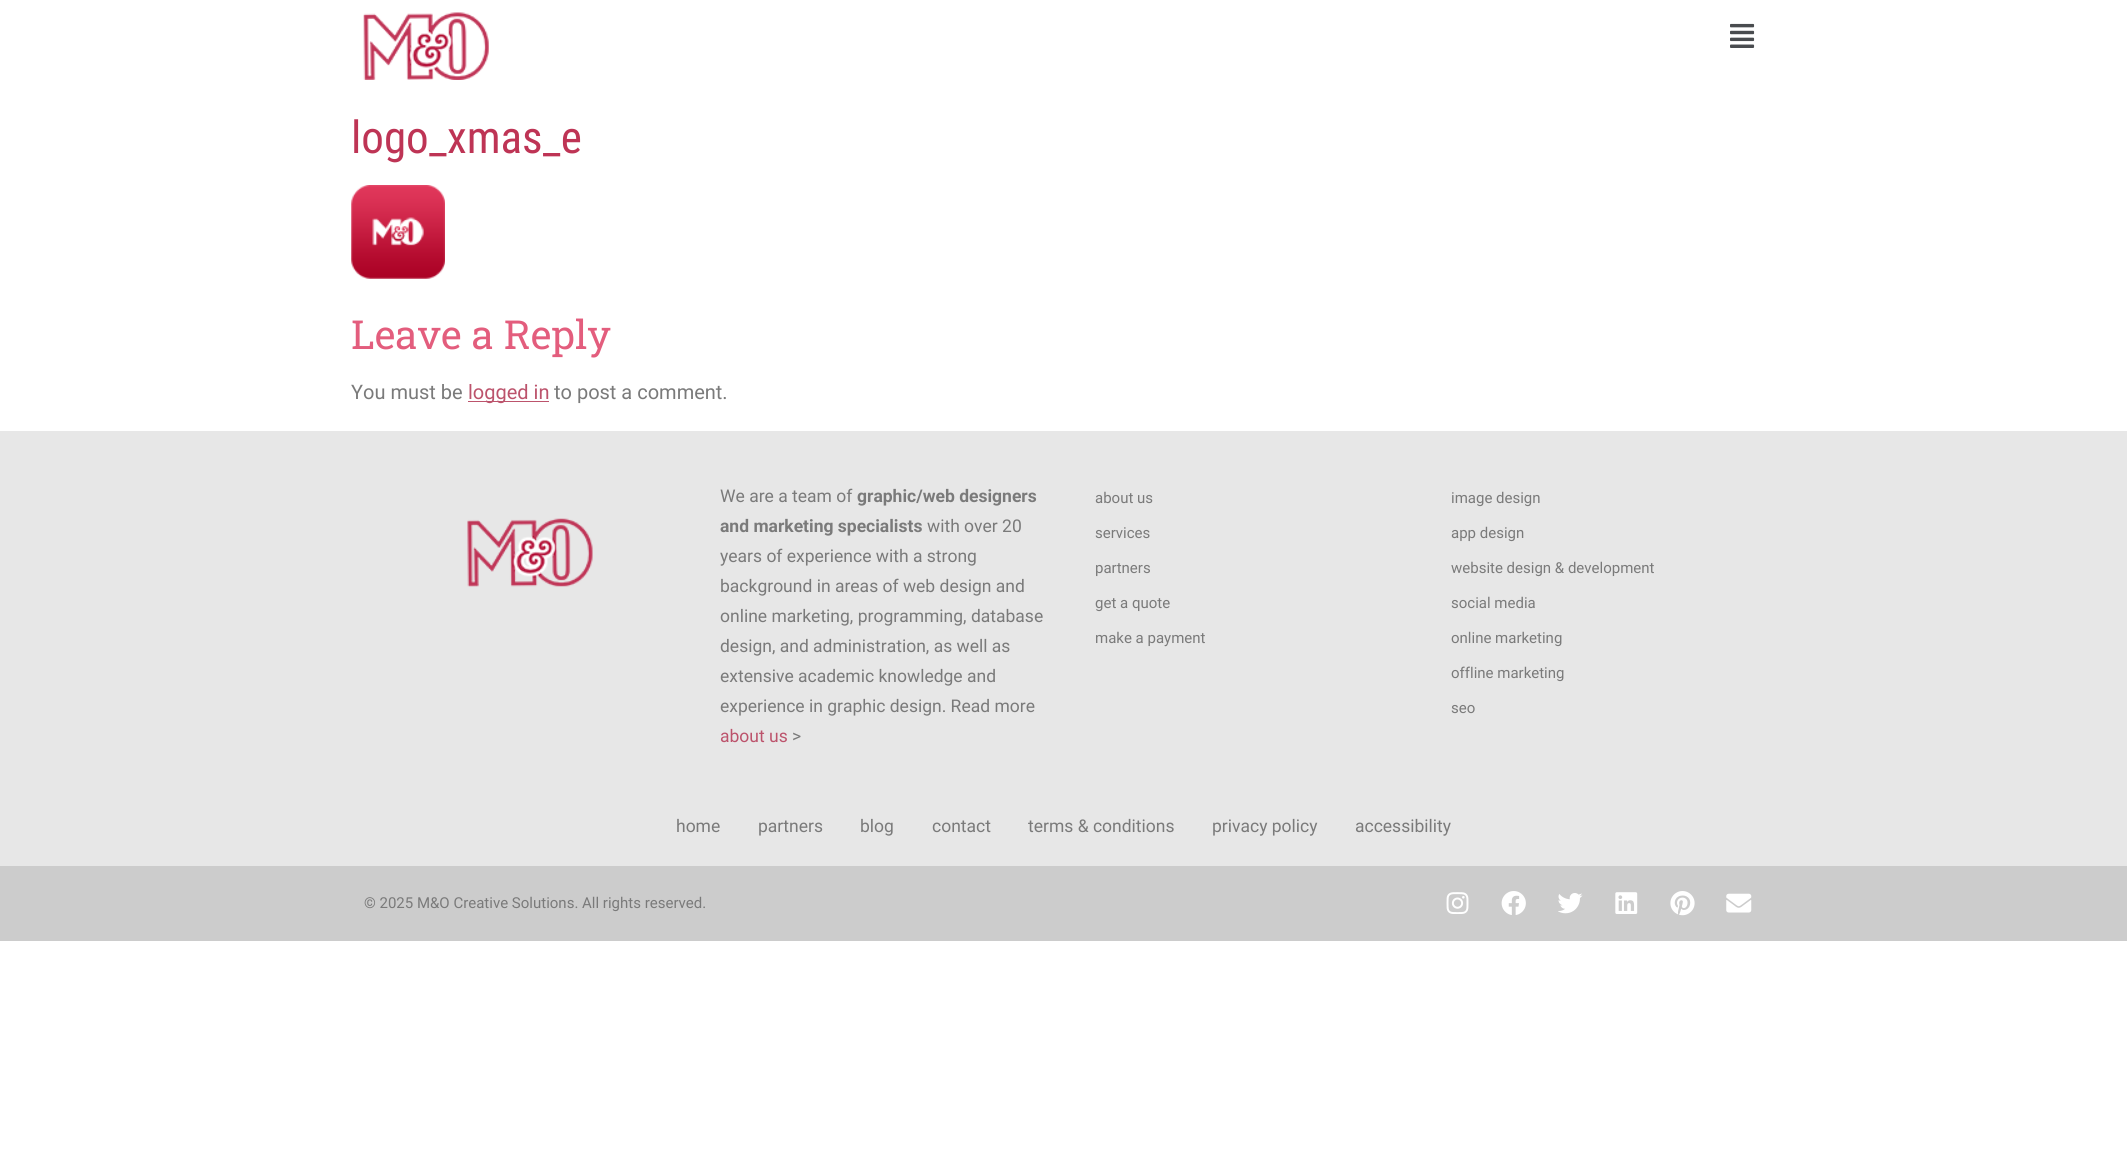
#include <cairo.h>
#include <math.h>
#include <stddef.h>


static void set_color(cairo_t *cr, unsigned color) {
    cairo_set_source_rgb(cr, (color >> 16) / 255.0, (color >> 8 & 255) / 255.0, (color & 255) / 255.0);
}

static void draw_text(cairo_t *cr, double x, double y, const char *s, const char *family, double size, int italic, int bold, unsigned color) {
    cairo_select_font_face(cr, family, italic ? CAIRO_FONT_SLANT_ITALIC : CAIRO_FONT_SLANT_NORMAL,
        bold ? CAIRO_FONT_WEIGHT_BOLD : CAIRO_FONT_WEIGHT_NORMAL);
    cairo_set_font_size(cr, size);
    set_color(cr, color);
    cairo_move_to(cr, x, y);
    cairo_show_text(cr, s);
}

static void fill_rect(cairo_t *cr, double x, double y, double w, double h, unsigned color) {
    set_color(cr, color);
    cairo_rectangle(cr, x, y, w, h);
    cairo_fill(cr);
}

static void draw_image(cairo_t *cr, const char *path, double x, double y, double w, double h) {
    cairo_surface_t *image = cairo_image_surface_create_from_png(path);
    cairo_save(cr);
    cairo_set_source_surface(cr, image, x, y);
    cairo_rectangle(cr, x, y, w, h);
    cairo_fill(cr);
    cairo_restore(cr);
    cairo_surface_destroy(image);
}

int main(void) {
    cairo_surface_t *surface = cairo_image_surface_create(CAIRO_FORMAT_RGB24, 2127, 1154);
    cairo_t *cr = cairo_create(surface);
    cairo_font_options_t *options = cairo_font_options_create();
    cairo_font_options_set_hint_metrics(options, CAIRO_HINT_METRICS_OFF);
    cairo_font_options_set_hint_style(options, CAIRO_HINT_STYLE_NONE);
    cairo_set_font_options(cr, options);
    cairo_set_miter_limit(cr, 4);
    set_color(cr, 0xFFFFFF);
    cairo_paint(cr);
    draw_image(cr, "assets/img1.png", 363, 12, 126, 68);
    draw_image(cr, "assets/img2.png", 1730, 23, 25, 25);
    draw_text(cr, 351, 153, "logo_xmas_e", "Roboto Condensed", 45, 0, 0, 0xBE3455);
    draw_image(cr, "assets/img3.png", 351, 185, 94, 94);
    draw_text(cr, 351, 349, "Leave a Reply", "Roboto Slab", 40, 0, 0, 0xE35D7D);
    draw_text(cr, 351, 399, "You must be", "Roboto", 20, 0, 0, 0x7A7A7A);
    fill_rect(cr, 468, 401, 81, 1, 0xBC536C);
    draw_text(cr, 468, 399, "logged in", "Roboto", 20, 0, 0, 0xBC536C);
    draw_text(cr, 554, 399, "to post a comment.", "Roboto", 20, 0, 0, 0x7A7A7A);
    fill_rect(cr, 0, 431, 2127, 435, 0xE7E7E7);
    draw_image(cr, "assets/img4.png", 467, 518, 126, 69);
    draw_text(cr, 720, 502, "We are a team of", "Roboto", 17.5, 0, 0, 0x7A7A7A);
    draw_text(cr, 857, 502, "graphic/web designers", "Roboto", 17.5, 0, 1, 0x7A7A7A);
    draw_text(cr, 720, 532, "and marketing specialists", "Roboto", 17.5, 0, 1, 0x7A7A7A);
    draw_text(cr, 927, 532, "with over 20", "Roboto", 17.5, 0, 0, 0x7A7A7A);
    draw_text(cr, 720, 562, "years of experience with a strong", "Roboto", 17.5, 0, 0, 0x7A7A7A);
    draw_text(cr, 720, 592, "background in areas of web design and", "Roboto", 17.5, 0, 0, 0x7A7A7A);
    draw_text(cr, 720, 622, "online marketing, programming, database", "Roboto", 17.5, 0, 0, 0x7A7A7A);
    draw_text(cr, 720, 652, "design, and administration, as well as", "Roboto", 17.5, 0, 0, 0x7A7A7A);
    draw_text(cr, 720, 682, "extensive academic knowledge and", "Roboto", 17.5, 0, 0, 0x7A7A7A);
    draw_text(cr, 720, 712, "experience in graphic design. Read more", "Roboto", 17.5, 0, 0, 0x7A7A7A);
    draw_text(cr, 720, 742, "about us", "Roboto", 17.5, 0, 0, 0xBC536C);
    draw_text(cr, 792, 742, ">", "Roboto", 17.5, 0, 0, 0x7A7A7A);
    draw_text(cr, 1095, 503, "about us", "Roboto", 15, 0, 0, 0x7A7A7A);
    draw_text(cr, 1095, 538, "services", "Roboto", 15, 0, 0, 0x7A7A7A);
    draw_text(cr, 1095, 573, "partners", "Roboto", 15, 0, 0, 0x7A7A7A);
    draw_text(cr, 1095, 608, "get a quote", "Roboto", 15, 0, 0, 0x7A7A7A);
    draw_text(cr, 1095, 643, "make a payment", "Roboto", 15, 0, 0, 0x7A7A7A);
    draw_text(cr, 1451, 503, "image design", "Roboto", 15, 0, 0, 0x7A7A7A);
    draw_text(cr, 1451, 538, "app design", "Roboto", 15, 0, 0, 0x7A7A7A);
    draw_text(cr, 1451, 573, "website design & development", "Roboto", 15, 0, 0, 0x7A7A7A);
    draw_text(cr, 1451, 608, "social media", "Roboto", 15, 0, 0, 0x7A7A7A);
    draw_text(cr, 1451, 643, "online marketing", "Roboto", 15, 0, 0, 0x7A7A7A);
    draw_text(cr, 1451, 678, "offline marketing", "Roboto", 15, 0, 0, 0x7A7A7A);
    draw_text(cr, 1451, 713, "seo", "Roboto", 15, 0, 0, 0x7A7A7A);
    draw_text(cr, 676, 832, "home", "Roboto", 17.5, 0, 0, 0x7A7A7A);
    draw_text(cr, 758, 832, "partners", "Roboto", 17.5, 0, 0, 0x7A7A7A);
    draw_text(cr, 860, 832, "blog", "Roboto", 17.5, 0, 0, 0x7A7A7A);
    draw_text(cr, 932, 832, "contact", "Roboto", 17.5, 0, 0, 0x7A7A7A);
    draw_text(cr, 1028, 832, "terms & conditions", "Roboto", 17.5, 0, 0, 0x7A7A7A);
    draw_text(cr, 1212, 832, "privacy policy", "Roboto", 17.5, 0, 0, 0x7A7A7A);
    draw_text(cr, 1355, 832, "accessibility", "Roboto", 17.5, 0, 0, 0x7A7A7A);
    fill_rect(cr, 0, 866, 2127, 75, 0xCCCCCC);
    draw_text(cr, 364, 908, "© 2025 M&O Creative Solutions. All rights reserved.", "Roboto", 15, 0, 0, 0x7A7A7A);
    draw_image(cr, "assets/img5.png", 1446, 892, 23, 22);
    draw_image(cr, "assets/img6.png", 1501, 891, 25, 24);
    draw_image(cr, "assets/img7.png", 1558, 893, 25, 21);
    draw_image(cr, "assets/img8.png", 1615, 892, 23, 22);
    draw_image(cr, "assets/img9.png", 1670, 891, 25, 25);
    draw_image(cr, "assets/img10.png", 1726, 893, 26, 20);
    cairo_surface_write_to_png(surface, "output.png");
    cairo_font_options_destroy(options);
    cairo_destroy(cr);
    cairo_surface_destroy(surface);
    return 0;
}
